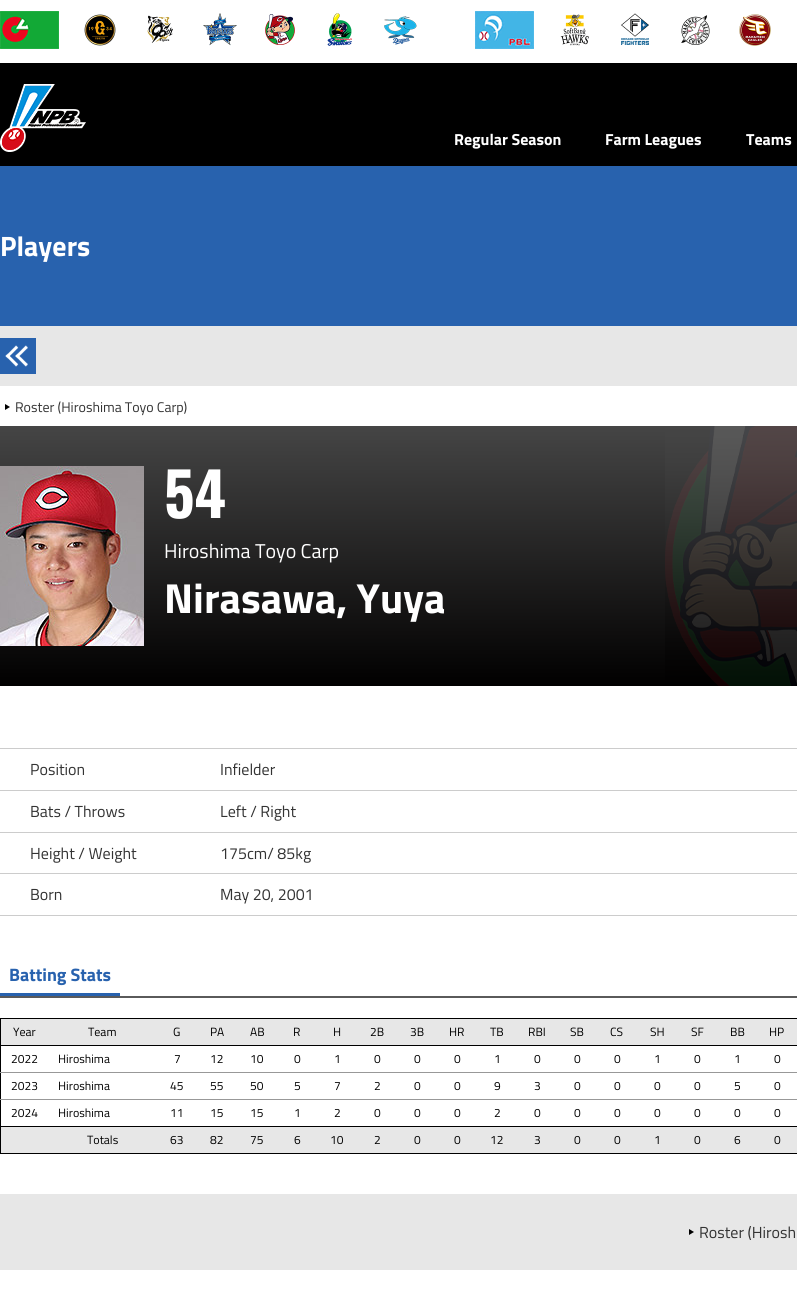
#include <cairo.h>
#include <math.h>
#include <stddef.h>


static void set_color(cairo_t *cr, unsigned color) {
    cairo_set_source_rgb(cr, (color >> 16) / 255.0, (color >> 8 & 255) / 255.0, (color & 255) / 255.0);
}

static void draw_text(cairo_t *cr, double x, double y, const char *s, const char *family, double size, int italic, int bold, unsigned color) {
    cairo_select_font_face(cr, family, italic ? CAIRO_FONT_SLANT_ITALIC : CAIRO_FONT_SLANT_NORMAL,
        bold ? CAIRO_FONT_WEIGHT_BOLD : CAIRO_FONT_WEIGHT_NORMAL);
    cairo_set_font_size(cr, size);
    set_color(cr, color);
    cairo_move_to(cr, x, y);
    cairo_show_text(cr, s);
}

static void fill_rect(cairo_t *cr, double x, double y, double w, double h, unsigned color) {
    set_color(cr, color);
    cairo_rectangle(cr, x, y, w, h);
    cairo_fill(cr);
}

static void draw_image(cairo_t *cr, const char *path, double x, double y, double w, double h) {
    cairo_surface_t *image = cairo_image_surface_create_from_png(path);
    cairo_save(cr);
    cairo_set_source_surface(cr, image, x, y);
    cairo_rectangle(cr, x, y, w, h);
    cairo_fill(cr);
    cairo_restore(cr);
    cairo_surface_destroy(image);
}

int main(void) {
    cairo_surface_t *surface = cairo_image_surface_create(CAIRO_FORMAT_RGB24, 797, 1311);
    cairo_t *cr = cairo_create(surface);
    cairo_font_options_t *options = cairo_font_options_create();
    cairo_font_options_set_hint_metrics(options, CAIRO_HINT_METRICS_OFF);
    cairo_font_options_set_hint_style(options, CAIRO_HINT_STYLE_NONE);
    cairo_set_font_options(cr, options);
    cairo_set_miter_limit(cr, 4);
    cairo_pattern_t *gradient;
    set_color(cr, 0xFFFFFF);
    cairo_paint(cr);
    draw_image(cr, "assets/img1.png", 0, 11, 59, 38);
    draw_image(cr, "assets/img2.png", 84, 14, 32, 32);
    draw_image(cr, "assets/img3.png", 147, 15, 26, 28);
    draw_image(cr, "assets/img4.png", 203, 13, 34, 33);
    draw_image(cr, "assets/img5.png", 265, 14, 30, 31);
    draw_image(cr, "assets/img6.png", 327, 13, 25, 33);
    draw_image(cr, "assets/img7.png", 384, 16, 33, 29);
    draw_image(cr, "assets/img8.png", 475, 11, 59, 38);
    draw_image(cr, "assets/img9.png", 560, 14, 29, 32);
    draw_image(cr, "assets/img10.png", 621, 13, 28, 32);
    draw_image(cr, "assets/img11.png", 681, 15, 29, 30);
    draw_image(cr, "assets/img12.png", 739, 14, 32, 32);
    fill_rect(cr, 0, 63, 797, 103, 0x000000);
    draw_image(cr, "assets/img13.png", 0, 84, 86, 68);
    draw_text(cr, 454, 145, "Regular Season", "Titillium Web", 16, 0, 1, 0xFFFFFF);
    draw_text(cr, 605, 145, "Farm Leagues", "Titillium Web", 16, 0, 1, 0xFFFFFF);
    draw_text(cr, 746, 145, "Teams", "Titillium Web", 16, 0, 1, 0xFFFFFF);
    fill_rect(cr, 0, 166, 797, 160, 0x2862AE);
    draw_text(cr, 0, 256, "Players", "Titillium Web", 28, 0, 1, 0xFFFFFF);
    fill_rect(cr, 0, 326, 797, 60, 0xE7E7E7);
    draw_image(cr, "assets/img14.png", 0, 338, 36, 36);
    draw_image(cr, "assets/img15.png", 5, 404, 5, 6);
    draw_text(cr, 15, 412, "Roster (Hiroshima Toyo Carp)", "Titillium Web", 14, 0, 0, 0x333333);
    gradient = cairo_pattern_create_linear(399, 426, 399, 686);
    cairo_pattern_add_color_stop_rgba(gradient, 0, 0.271, 0.271, 0.271, 1);
    cairo_pattern_add_color_stop_rgba(gradient, 1, 0.004, 0, 0, 1);
    cairo_set_source(cr, gradient);
    cairo_pattern_destroy(gradient);
    cairo_rectangle(cr, 0, 426, 665, 260);
    cairo_fill(cr);
    draw_image(cr, "assets/img16.png", 665, 426, 132, 260);
    draw_image(cr, "assets/img17.png", 0, 466, 144, 180);
    draw_text(cr, 164, 518, "54", "Oswald", 60, 0, 1, 0xFFFFFF);
    draw_text(cr, 164, 558, "Hiroshima Toyo Carp", "Titillium Web", 20, 0, 0, 0xFFFFFF);
    draw_text(cr, 164, 613, "Nirasawa, Yuya", "Titillium Web", 42, 0, 1, 0xFFFFFF);
    fill_rect(cr, 0, 748, 797, 1, 0xCCCCCC);
    draw_text(cr, 30, 775, "Position", "Titillium Web", 16, 0, 0, 0x333333);
    fill_rect(cr, 0, 790, 797, 1, 0xCCCCCC);
    draw_text(cr, 220, 775, "Infielder", "Titillium Web", 16, 0, 0, 0x333333);
    draw_text(cr, 30, 817, "Bats / Throws", "Titillium Web", 16, 0, 0, 0x333333);
    fill_rect(cr, 0, 832, 797, 1, 0xCCCCCC);
    draw_text(cr, 220, 817, "Left / Right", "Titillium Web", 16, 0, 0, 0x333333);
    draw_text(cr, 30, 859, "Height / Weight", "Titillium Web", 16, 0, 0, 0x333333);
    fill_rect(cr, 0, 873, 797, 1, 0xCCCCCC);
    draw_text(cr, 220, 859, "175cm/ 85kg", "Titillium Web", 16, 0, 0, 0x333333);
    draw_text(cr, 30, 900, "Born", "Titillium Web", 16, 0, 0, 0x333333);
    fill_rect(cr, 0, 915, 797, 1, 0xCCCCCC);
    draw_text(cr, 220, 900, "May 20, 2001", "Titillium Web", 16, 0, 0, 0x333333);
    fill_rect(cr, 0, 996, 797, 2, 0x5A5A5A);
    fill_rect(cr, 0, 993, 120, 3, 0x2862AE);
    draw_text(cr, 9, 981, "Batting Stats", "Titillium Web", 18, 0, 1, 0x2862AE);
    fill_rect(cr, 0, 1018, 797, 1, 0x000000);
    fill_rect(cr, 0, 1153, 797, 1, 0x000000);
    fill_rect(cr, 0, 1018, 1, 136, 0x000000);
    fill_rect(cr, 1, 1019, 796, 26, 0xE7E7E7);
    draw_text(cr, 13, 1036, "Year", "Titillium Web", 12, 0, 0, 0x000000);
    draw_text(cr, 88, 1036, "Team", "Titillium Web", 12, 0, 0, 0x000000);
    draw_text(cr, 173, 1036, "G", "Titillium Web", 12, 0, 0, 0x000000);
    draw_text(cr, 210, 1036, "PA", "Titillium Web", 12, 0, 0, 0x000000);
    draw_text(cr, 250, 1036, "AB", "Titillium Web", 12, 0, 0, 0x000000);
    draw_text(cr, 293, 1036, "R", "Titillium Web", 12, 0, 0, 0x000000);
    draw_text(cr, 333, 1036, "H", "Titillium Web", 12, 0, 0, 0x000000);
    draw_text(cr, 370, 1036, "2B", "Titillium Web", 12, 0, 0, 0x000000);
    draw_text(cr, 410, 1036, "3B", "Titillium Web", 12, 0, 0, 0x000000);
    draw_text(cr, 449, 1036, "HR", "Titillium Web", 12, 0, 0, 0x000000);
    draw_text(cr, 490, 1036, "TB", "Titillium Web", 12, 0, 0, 0x000000);
    draw_text(cr, 528, 1036, "RBI", "Titillium Web", 12, 0, 0, 0x000000);
    draw_text(cr, 570, 1036, "SB", "Titillium Web", 12, 0, 0, 0x000000);
    draw_text(cr, 610, 1036, "CS", "Titillium Web", 12, 0, 0, 0x000000);
    draw_text(cr, 650, 1036, "SH", "Titillium Web", 12, 0, 0, 0x000000);
    draw_text(cr, 691, 1036, "SF", "Titillium Web", 12, 0, 0, 0x000000);
    draw_text(cr, 730, 1036, "BB", "Titillium Web", 12, 0, 0, 0x000000);
    fill_rect(cr, 0, 1045, 797, 1, 0x000000);
    draw_text(cr, 769, 1036, "HP", "Titillium Web", 12, 0, 0, 0x000000);
    draw_text(cr, 11, 1063, "2022", "Titillium Web", 12, 0, 0, 0x000000);
    draw_text(cr, 58, 1063, "Hiroshima", "Titillium Web", 12, 0, 0, 0x000000);
    draw_text(cr, 174, 1063, "7", "Titillium Web", 12, 0, 0, 0x000000);
    draw_text(cr, 210, 1063, "12", "Titillium Web", 12, 0, 0, 0x000000);
    draw_text(cr, 250, 1063, "10", "Titillium Web", 12, 0, 0, 0x000000);
    draw_text(cr, 294, 1063, "0", "Titillium Web", 12, 0, 0, 0x000000);
    draw_text(cr, 334, 1063, "1", "Titillium Web", 12, 0, 0, 0x000000);
    draw_text(cr, 374, 1063, "0", "Titillium Web", 12, 0, 0, 0x000000);
    draw_text(cr, 414, 1063, "0", "Titillium Web", 12, 0, 0, 0x000000);
    draw_text(cr, 454, 1063, "0", "Titillium Web", 12, 0, 0, 0x000000);
    draw_text(cr, 494, 1063, "1", "Titillium Web", 12, 0, 0, 0x000000);
    draw_text(cr, 534, 1063, "0", "Titillium Web", 12, 0, 0, 0x000000);
    draw_text(cr, 574, 1063, "0", "Titillium Web", 12, 0, 0, 0x000000);
    draw_text(cr, 614, 1063, "0", "Titillium Web", 12, 0, 0, 0x000000);
    draw_text(cr, 654, 1063, "1", "Titillium Web", 12, 0, 0, 0x000000);
    draw_text(cr, 694, 1063, "0", "Titillium Web", 12, 0, 0, 0x000000);
    draw_text(cr, 734, 1063, "1", "Titillium Web", 12, 0, 0, 0x000000);
    fill_rect(cr, 0, 1072, 797, 1, 0x989898);
    draw_text(cr, 774, 1063, "0", "Titillium Web", 12, 0, 0, 0x000000);
    draw_text(cr, 11, 1090, "2023", "Titillium Web", 12, 0, 0, 0x000000);
    draw_text(cr, 58, 1090, "Hiroshima", "Titillium Web", 12, 0, 0, 0x000000);
    draw_text(cr, 170, 1090, "45", "Titillium Web", 12, 0, 0, 0x000000);
    draw_text(cr, 210, 1090, "55", "Titillium Web", 12, 0, 0, 0x000000);
    draw_text(cr, 250, 1090, "50", "Titillium Web", 12, 0, 0, 0x000000);
    draw_text(cr, 294, 1090, "5", "Titillium Web", 12, 0, 0, 0x000000);
    draw_text(cr, 334, 1090, "7", "Titillium Web", 12, 0, 0, 0x000000);
    draw_text(cr, 374, 1090, "2", "Titillium Web", 12, 0, 0, 0x000000);
    draw_text(cr, 414, 1090, "0", "Titillium Web", 12, 0, 0, 0x000000);
    draw_text(cr, 454, 1090, "0", "Titillium Web", 12, 0, 0, 0x000000);
    draw_text(cr, 494, 1090, "9", "Titillium Web", 12, 0, 0, 0x000000);
    draw_text(cr, 534, 1090, "3", "Titillium Web", 12, 0, 0, 0x000000);
    draw_text(cr, 574, 1090, "0", "Titillium Web", 12, 0, 0, 0x000000);
    draw_text(cr, 614, 1090, "0", "Titillium Web", 12, 0, 0, 0x000000);
    draw_text(cr, 654, 1090, "0", "Titillium Web", 12, 0, 0, 0x000000);
    draw_text(cr, 694, 1090, "0", "Titillium Web", 12, 0, 0, 0x000000);
    draw_text(cr, 734, 1090, "5", "Titillium Web", 12, 0, 0, 0x000000);
    fill_rect(cr, 0, 1099, 797, 1, 0x989898);
    draw_text(cr, 774, 1090, "0", "Titillium Web", 12, 0, 0, 0x000000);
    draw_text(cr, 11, 1117, "2024", "Titillium Web", 12, 0, 0, 0x000000);
    draw_text(cr, 58, 1117, "Hiroshima", "Titillium Web", 12, 0, 0, 0x000000);
    draw_text(cr, 170, 1117, "11", "Titillium Web", 12, 0, 0, 0x000000);
    draw_text(cr, 210, 1117, "15", "Titillium Web", 12, 0, 0, 0x000000);
    draw_text(cr, 250, 1117, "15", "Titillium Web", 12, 0, 0, 0x000000);
    draw_text(cr, 294, 1117, "1", "Titillium Web", 12, 0, 0, 0x000000);
    draw_text(cr, 334, 1117, "2", "Titillium Web", 12, 0, 0, 0x000000);
    draw_text(cr, 374, 1117, "0", "Titillium Web", 12, 0, 0, 0x000000);
    draw_text(cr, 414, 1117, "0", "Titillium Web", 12, 0, 0, 0x000000);
    draw_text(cr, 454, 1117, "0", "Titillium Web", 12, 0, 0, 0x000000);
    draw_text(cr, 494, 1117, "2", "Titillium Web", 12, 0, 0, 0x000000);
    draw_text(cr, 534, 1117, "0", "Titillium Web", 12, 0, 0, 0x000000);
    draw_text(cr, 574, 1117, "0", "Titillium Web", 12, 0, 0, 0x000000);
    draw_text(cr, 614, 1117, "0", "Titillium Web", 12, 0, 0, 0x000000);
    draw_text(cr, 654, 1117, "0", "Titillium Web", 12, 0, 0, 0x000000);
    draw_text(cr, 694, 1117, "0", "Titillium Web", 12, 0, 0, 0x000000);
    draw_text(cr, 734, 1117, "0", "Titillium Web", 12, 0, 0, 0x000000);
    draw_text(cr, 774, 1117, "0", "Titillium Web", 12, 0, 0, 0x000000);
    fill_rect(cr, 1, 1127, 796, 26, 0xE7E7E7);
    draw_text(cr, 87, 1144, "Totals", "Titillium Web", 12, 0, 0, 0x000000);
    draw_text(cr, 170, 1144, "63", "Titillium Web", 12, 0, 0, 0x000000);
    draw_text(cr, 210, 1144, "82", "Titillium Web", 12, 0, 0, 0x000000);
    draw_text(cr, 250, 1144, "75", "Titillium Web", 12, 0, 0, 0x000000);
    draw_text(cr, 294, 1144, "6", "Titillium Web", 12, 0, 0, 0x000000);
    draw_text(cr, 330, 1144, "10", "Titillium Web", 12, 0, 0, 0x000000);
    draw_text(cr, 374, 1144, "2", "Titillium Web", 12, 0, 0, 0x000000);
    draw_text(cr, 414, 1144, "0", "Titillium Web", 12, 0, 0, 0x000000);
    draw_text(cr, 454, 1144, "0", "Titillium Web", 12, 0, 0, 0x000000);
    draw_text(cr, 490, 1144, "12", "Titillium Web", 12, 0, 0, 0x000000);
    draw_text(cr, 534, 1144, "3", "Titillium Web", 12, 0, 0, 0x000000);
    draw_text(cr, 574, 1144, "0", "Titillium Web", 12, 0, 0, 0x000000);
    draw_text(cr, 614, 1144, "0", "Titillium Web", 12, 0, 0, 0x000000);
    draw_text(cr, 654, 1144, "1", "Titillium Web", 12, 0, 0, 0x000000);
    draw_text(cr, 694, 1144, "0", "Titillium Web", 12, 0, 0, 0x000000);
    draw_text(cr, 734, 1144, "6", "Titillium Web", 12, 0, 0, 0x000000);
    fill_rect(cr, 0, 1126, 797, 1, 0x000000);
    draw_text(cr, 774, 1144, "0", "Titillium Web", 12, 0, 0, 0x000000);
    fill_rect(cr, 0, 1194, 797, 76, 0xE7E7E7);
    draw_image(cr, "assets/img18.png", 689, 1229, 5, 6);
    draw_text(cr, 699, 1238, "Roster (Hirosh", "Titillium Web", 16, 0, 0, 0x333333);
    cairo_surface_write_to_png(surface, "output.png");
    cairo_font_options_destroy(options);
    cairo_destroy(cr);
    cairo_surface_destroy(surface);
    return 0;
}
